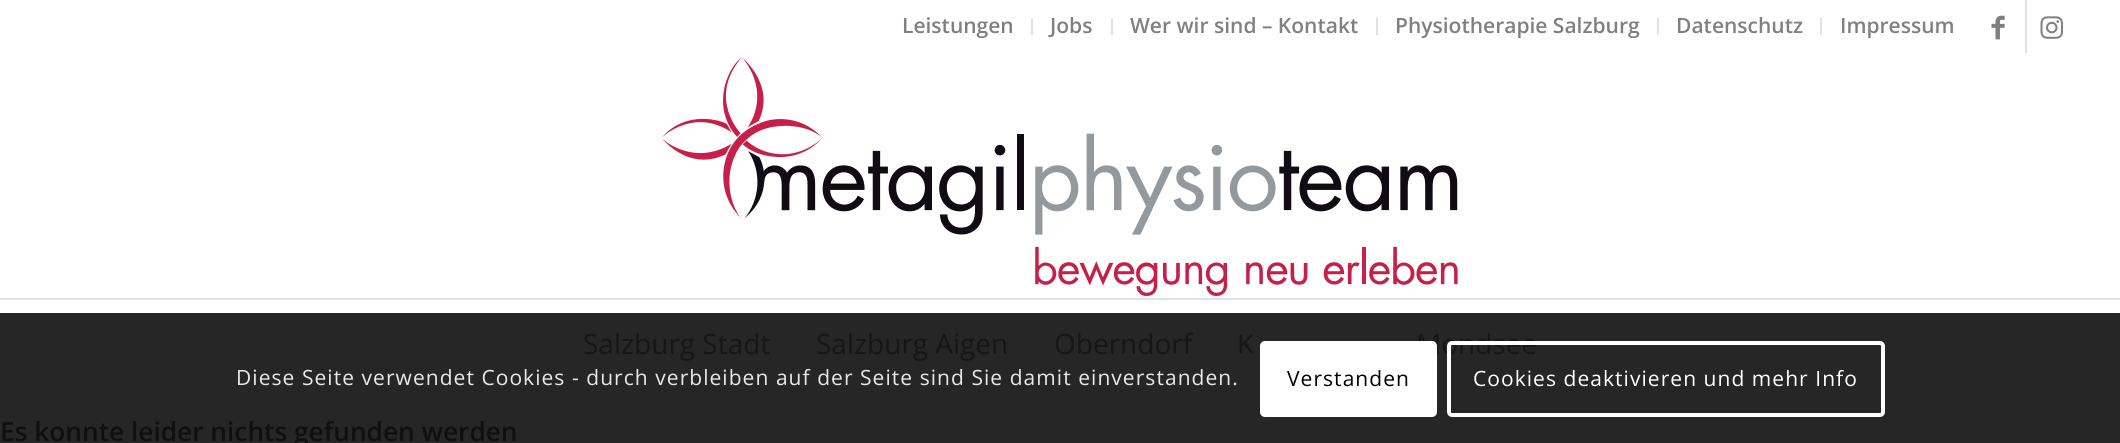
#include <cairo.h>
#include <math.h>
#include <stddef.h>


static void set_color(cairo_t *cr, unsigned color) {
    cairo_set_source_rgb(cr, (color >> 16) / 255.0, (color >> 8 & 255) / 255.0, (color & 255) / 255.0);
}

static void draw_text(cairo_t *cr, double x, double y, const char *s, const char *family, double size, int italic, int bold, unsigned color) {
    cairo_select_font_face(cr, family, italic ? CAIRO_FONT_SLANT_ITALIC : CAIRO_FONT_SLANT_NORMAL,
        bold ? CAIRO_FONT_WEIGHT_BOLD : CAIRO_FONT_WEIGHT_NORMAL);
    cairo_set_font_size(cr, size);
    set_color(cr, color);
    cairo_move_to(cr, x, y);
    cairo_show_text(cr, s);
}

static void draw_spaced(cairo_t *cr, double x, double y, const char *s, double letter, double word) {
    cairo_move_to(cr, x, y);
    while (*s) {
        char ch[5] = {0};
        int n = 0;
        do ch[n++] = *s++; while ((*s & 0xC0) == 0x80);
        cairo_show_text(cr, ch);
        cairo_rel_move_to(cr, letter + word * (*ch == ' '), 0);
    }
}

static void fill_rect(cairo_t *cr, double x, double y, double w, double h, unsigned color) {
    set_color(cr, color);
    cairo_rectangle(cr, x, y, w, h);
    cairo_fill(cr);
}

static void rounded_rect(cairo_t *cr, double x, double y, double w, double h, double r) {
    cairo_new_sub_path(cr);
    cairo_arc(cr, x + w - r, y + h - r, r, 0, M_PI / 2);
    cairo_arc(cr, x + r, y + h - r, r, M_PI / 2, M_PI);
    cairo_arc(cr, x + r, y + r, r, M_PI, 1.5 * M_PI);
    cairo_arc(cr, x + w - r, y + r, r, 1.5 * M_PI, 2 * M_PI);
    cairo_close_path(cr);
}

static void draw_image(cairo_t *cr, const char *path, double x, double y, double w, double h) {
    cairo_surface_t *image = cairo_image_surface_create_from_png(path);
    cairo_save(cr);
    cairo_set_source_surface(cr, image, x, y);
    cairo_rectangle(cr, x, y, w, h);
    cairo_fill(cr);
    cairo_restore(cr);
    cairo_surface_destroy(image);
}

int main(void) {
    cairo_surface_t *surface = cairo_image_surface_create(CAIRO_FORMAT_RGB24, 2120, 443);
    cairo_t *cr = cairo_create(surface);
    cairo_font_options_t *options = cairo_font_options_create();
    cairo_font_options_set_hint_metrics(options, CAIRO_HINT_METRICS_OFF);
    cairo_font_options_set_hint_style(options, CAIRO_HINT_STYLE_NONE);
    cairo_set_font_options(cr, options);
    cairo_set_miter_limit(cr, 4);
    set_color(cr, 0xFFFFFF);
    cairo_paint(cr);
    fill_rect(cr, 0, 313, 2120, 130, 0x262626);
    fill_rect(cr, 1031, 18, 2, 17, 0xE1E1E1);
    draw_text(cr, 902, 33, "Leistungen", "Open Sans SemiBold", 21, 0, 0, 0x808080);
    fill_rect(cr, 1111, 18, 2, 17, 0xE1E1E1);
    draw_text(cr, 1050, 33, "Jobs", "Open Sans SemiBold", 21, 0, 0, 0x808080);
    fill_rect(cr, 1376, 18, 2, 17, 0xE1E1E1);
    draw_text(cr, 1130, 33, "Wer wir sind – Kontakt", "Open Sans SemiBold", 21, 0, 0, 0x808080);
    fill_rect(cr, 1657, 18, 2, 17, 0xE1E1E1);
    draw_text(cr, 1395, 33, "Physiotherapie Salzburg", "Open Sans SemiBold", 21, 0, 0, 0x808080);
    fill_rect(cr, 1820, 18, 2, 17, 0xE1E1E1);
    draw_text(cr, 1676, 33, "Datenschutz", "Open Sans SemiBold", 21, 0, 0, 0x808080);
    draw_text(cr, 1840, 33, "Impressum", "Open Sans SemiBold", 21, 0, 0, 0x808080);
    fill_rect(cr, 2025, 0, 2, 53, 0xE1E1E1);
    draw_image(cr, "assets/img1.png", 1991, 15, 14, 25);
    draw_image(cr, "assets/img2.png", 2040, 16, 23, 23);
    draw_image(cr, "assets/img3.png", 661, 57, 797, 239);
    fill_rect(cr, 0, 298, 2120, 2, 0xE1E1E1);
    draw_text(cr, 583, 354, "Salzburg Stadt", "Open Sans", 28, 0, 0, 0x161617);
    draw_text(cr, 816, 354, "Salzburg Aigen", "Open Sans", 28, 0, 0, 0x161617);
    draw_text(cr, 1054, 354, "Oberndorf", "Open Sans", 28, 0, 0, 0x161617);
    draw_text(cr, 1237, 354, "K", "Open Sans", 28, 0, 0, 0x161617);
    draw_text(cr, 1416, 354, "Mondsee", "Open Sans", 28, 0, 0, 0x161617);
    draw_text(cr, 0, 441, "Es konnte leider nichts gefunden werden", "Open Sans SemiBold", 26.25, 0, 0, 0x0F0F0F);
    cairo_select_font_face(cr, "Open Sans", CAIRO_FONT_SLANT_NORMAL, CAIRO_FONT_WEIGHT_NORMAL);
    cairo_set_font_size(cr, 21);
    set_color(cr, 0xE9E9E9);
    draw_spaced(cr, 236, 385, "Diese Seite verwendet Cookies - durch verbleiben auf der Seite sind Sie damit einverstanden.", 1.05, 0);
    set_color(cr, 0xFFFFFF);
    rounded_rect(cr, 1260, 341, 177, 76, 5);
    cairo_fill(cr);
    set_color(cr, 0x000000);
    draw_spaced(cr, 1287, 386, "Verstanden", 1.05, 0);
    rounded_rect(cr, 1449, 343, 434, 72, 3);
    set_color(cr, 0xFFFFFF);
    cairo_set_line_width(cr, 4);
    cairo_stroke(cr);
    draw_spaced(cr, 1473, 386, "Cookies deaktivieren und mehr Info", 1.05, 0);
    cairo_surface_write_to_png(surface, "output.png");
    cairo_font_options_destroy(options);
    cairo_destroy(cr);
    cairo_surface_destroy(surface);
    return 0;
}
